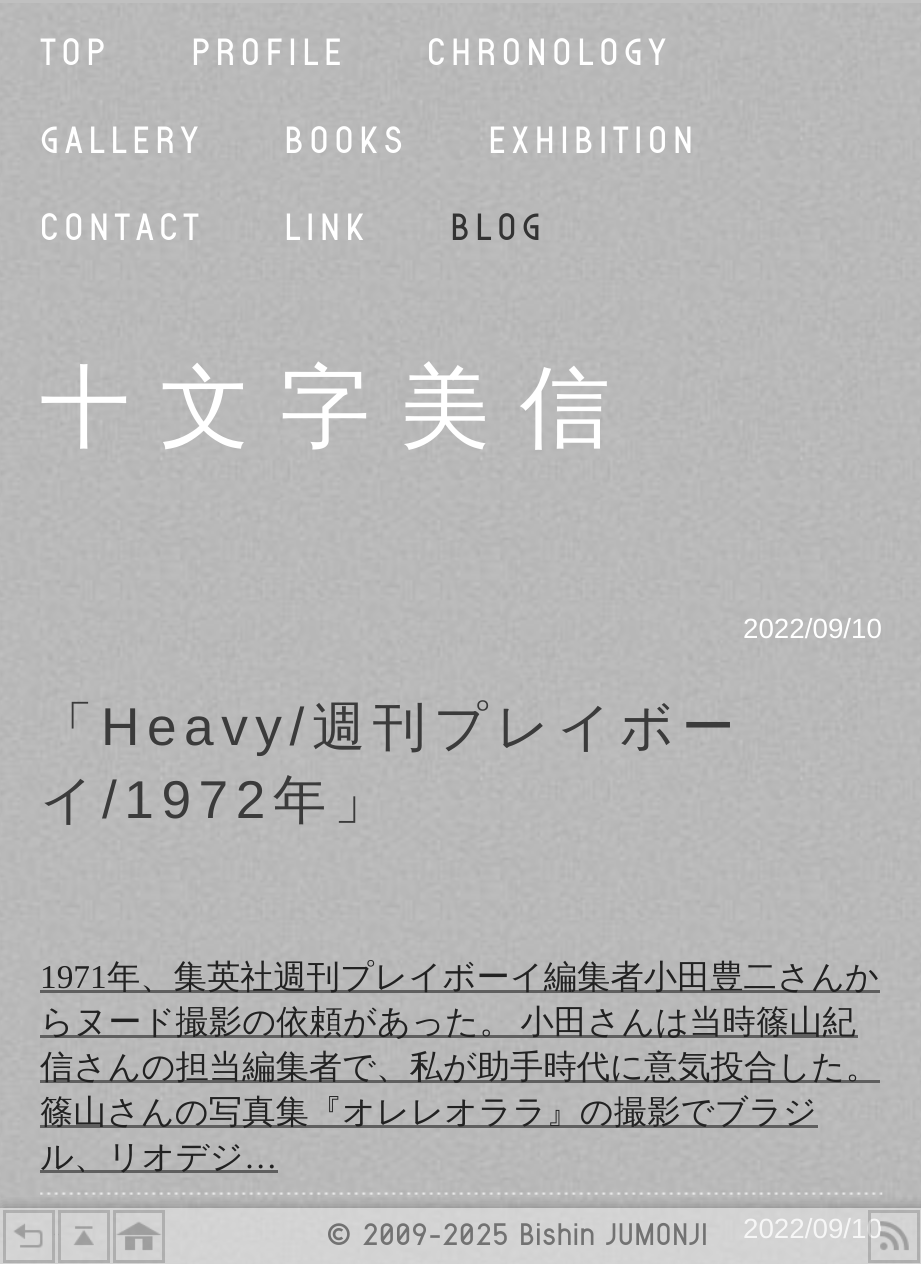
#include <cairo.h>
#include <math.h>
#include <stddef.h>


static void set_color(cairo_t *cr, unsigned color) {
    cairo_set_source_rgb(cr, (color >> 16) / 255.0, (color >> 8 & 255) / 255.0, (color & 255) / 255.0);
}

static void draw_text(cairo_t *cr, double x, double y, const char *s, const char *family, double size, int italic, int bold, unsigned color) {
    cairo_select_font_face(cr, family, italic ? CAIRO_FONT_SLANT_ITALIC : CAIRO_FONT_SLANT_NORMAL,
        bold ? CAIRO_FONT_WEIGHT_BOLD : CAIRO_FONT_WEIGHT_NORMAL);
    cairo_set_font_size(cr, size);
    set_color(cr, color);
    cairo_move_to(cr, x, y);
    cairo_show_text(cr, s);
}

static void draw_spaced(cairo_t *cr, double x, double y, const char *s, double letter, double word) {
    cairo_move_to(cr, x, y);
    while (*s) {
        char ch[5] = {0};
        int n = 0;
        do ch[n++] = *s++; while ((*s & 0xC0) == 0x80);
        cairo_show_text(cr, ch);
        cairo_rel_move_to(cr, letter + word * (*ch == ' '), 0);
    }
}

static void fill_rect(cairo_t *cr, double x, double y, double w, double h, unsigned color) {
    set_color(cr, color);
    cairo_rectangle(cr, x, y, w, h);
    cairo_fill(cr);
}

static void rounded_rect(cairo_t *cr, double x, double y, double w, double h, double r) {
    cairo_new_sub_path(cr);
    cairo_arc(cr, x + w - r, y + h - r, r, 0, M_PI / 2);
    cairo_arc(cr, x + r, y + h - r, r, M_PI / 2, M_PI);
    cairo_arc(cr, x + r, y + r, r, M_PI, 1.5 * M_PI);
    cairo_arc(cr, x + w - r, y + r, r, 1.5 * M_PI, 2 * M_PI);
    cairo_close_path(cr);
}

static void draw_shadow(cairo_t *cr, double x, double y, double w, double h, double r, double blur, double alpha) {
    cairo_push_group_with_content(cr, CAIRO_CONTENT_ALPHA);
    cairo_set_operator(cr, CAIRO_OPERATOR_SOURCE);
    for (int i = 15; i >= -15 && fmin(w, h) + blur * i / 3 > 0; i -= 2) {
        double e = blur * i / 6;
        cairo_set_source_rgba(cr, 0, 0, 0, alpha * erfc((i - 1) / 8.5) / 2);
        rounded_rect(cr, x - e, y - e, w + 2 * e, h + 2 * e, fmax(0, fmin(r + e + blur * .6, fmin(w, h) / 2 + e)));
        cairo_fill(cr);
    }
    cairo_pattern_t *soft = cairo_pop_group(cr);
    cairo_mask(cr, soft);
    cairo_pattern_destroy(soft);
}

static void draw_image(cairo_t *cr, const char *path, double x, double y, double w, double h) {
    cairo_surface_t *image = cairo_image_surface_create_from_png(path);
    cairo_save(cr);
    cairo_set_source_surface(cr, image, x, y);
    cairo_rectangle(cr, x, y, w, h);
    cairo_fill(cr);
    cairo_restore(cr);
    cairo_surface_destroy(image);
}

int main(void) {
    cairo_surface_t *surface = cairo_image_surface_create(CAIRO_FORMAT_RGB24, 921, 1264);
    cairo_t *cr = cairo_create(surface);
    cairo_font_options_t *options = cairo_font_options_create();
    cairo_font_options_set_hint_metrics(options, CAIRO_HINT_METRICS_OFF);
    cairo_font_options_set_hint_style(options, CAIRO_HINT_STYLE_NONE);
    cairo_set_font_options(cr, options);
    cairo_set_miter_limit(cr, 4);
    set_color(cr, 0xFFFFFF);
    cairo_paint(cr);
    draw_image(cr, "assets/img1.png", 0, 3, 921, 1261);
    fill_rect(cr, 0, 0, 921, 3, 0xC0C0C0);
    cairo_select_font_face(cr, "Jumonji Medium", CAIRO_FONT_SLANT_NORMAL, CAIRO_FONT_WEIGHT_NORMAL);
    cairo_set_font_size(cr, 40.5);
    set_color(cr, 0xFFFFFF);
    draw_spaced(cr, 40, 65, "TOP", 5, 0);
    draw_spaced(cr, 191, 65, "PROFILE", 5, 0);
    draw_spaced(cr, 427, 65, "CHRONOLOGY", 5, 0);
    draw_spaced(cr, 40, 153, "GALLERY", 5, 0);
    draw_spaced(cr, 284, 153, "BOOKS", 5, 0);
    draw_spaced(cr, 488, 153, "EXHIBITION", 5, 0);
    draw_spaced(cr, 40, 240, "CONTACT", 5, 0);
    draw_spaced(cr, 284, 240, "LINK", 5, 0);
    set_color(cr, 0x333333);
    draw_spaced(cr, 450, 240, "BLOG", 5, 0);
    cairo_select_font_face(cr, "WenQuanYi Zen Hei Medium", CAIRO_FONT_SLANT_NORMAL, CAIRO_FONT_WEIGHT_NORMAL);
    cairo_set_font_size(cr, 90);
    set_color(cr, 0xFFFFFF);
    draw_spaced(cr, 40, 438, "十文字美信", 30, 0);
    draw_text(cr, 743, 638, "2022/09/10", "Liberation Sans", 27.75, 0, 0, 0xFFFFFF);
    cairo_select_font_face(cr, "WenQuanYi Zen Hei Medium", CAIRO_FONT_SLANT_NORMAL, CAIRO_FONT_WEIGHT_NORMAL);
    cairo_set_font_size(cr, 53.25);
    set_color(cr, 0x3B3B3B);
    draw_spaced(cr, 40, 745, "「", 7.5, 0);
    cairo_select_font_face(cr, "Liberation Sans", CAIRO_FONT_SLANT_NORMAL, CAIRO_FONT_WEIGHT_NORMAL);
    draw_spaced(cr, 101, 745, "Heavy/", 7.5, 0);
    cairo_select_font_face(cr, "WenQuanYi Zen Hei Medium", CAIRO_FONT_SLANT_NORMAL, CAIRO_FONT_WEIGHT_NORMAL);
    draw_spaced(cr, 312, 745, "週刊プレイボー", 7.5, 0);
    draw_spaced(cr, 40, 818, "イ", 7.5, 0);
    cairo_select_font_face(cr, "Liberation Sans", CAIRO_FONT_SLANT_NORMAL, CAIRO_FONT_WEIGHT_NORMAL);
    draw_spaced(cr, 102, 818, "/1972", 7.5, 0);
    cairo_select_font_face(cr, "WenQuanYi Zen Hei Medium", CAIRO_FONT_SLANT_NORMAL, CAIRO_FONT_WEIGHT_NORMAL);
    draw_spaced(cr, 273, 818, "年」", 7.5, 0);
    draw_text(cr, 40, 988, "1971", "Liberation Serif", 33.3, 0, 0, 0x222222);
    fill_rect(cr, 40, 990, 840, 3, 0x5F5F5F);
    draw_text(cr, 107, 988, "年、集英社週刊プレイボーイ編集者小田豊二さんか", "WenQuanYi Zen Hei Medium", 33.3, 0, 0, 0x222222);
    fill_rect(cr, 40, 1035, 818, 3, 0x5F5F5F);
    set_color(cr, 0x222222);
    draw_spaced(cr, 40, 1033, "らヌード撮影の依頼があった。 小田さんは当時篠山紀", 0, -2);
    fill_rect(cr, 40, 1080, 840, 3, 0x5F5F5F);
    draw_text(cr, 40, 1078, "信さんの担当編集者で、私が助手時代に意気投合した。", "WenQuanYi Zen Hei Medium", 33.3, 0, 0, 0x222222);
    fill_rect(cr, 40, 1125, 778, 3, 0x5F5F5F);
    draw_text(cr, 40, 1123, "篠山さんの写真集『オレレオララ』の撮影でブラジ", "WenQuanYi Zen Hei Medium", 33.3, 0, 0, 0x222222);
    fill_rect(cr, 40, 1170, 238, 3, 0x5F5F5F);
    draw_text(cr, 40, 1168, "ル、リオデジ", "WenQuanYi Zen Hei Medium", 33.3, 0, 0, 0x222222);
    draw_text(cr, 244, 1168, "…", "Liberation Serif", 33.3, 0, 0, 0x222222);
    draw_image(cr, "assets/img2.png", 40, 1192, 843, 3);
    draw_text(cr, 743, 1238, "2022/09/10", "Liberation Sans", 27.75, 0, 0, 0xFFFFFF);
    cairo_save(cr);
    cairo_rectangle(cr, 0, 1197, 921, 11);
    cairo_clip(cr);
    set_color(cr, 0x333333);
    draw_shadow(cr, 3, 1210, 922, 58, 0, 7.5, 0.5);
    cairo_restore(cr);
    cairo_set_source_rgba(cr, 0.933, 0.933, 0.933, 0.5);
    cairo_rectangle(cr, 0, 1208, 921, 56);
    cairo_fill(cr);
    draw_image(cr, "assets/img3.png", 13, 1223, 42, 25);
    cairo_rectangle(cr, 4.5, 1211.5, 49, 50);
    cairo_set_source_rgba(cr, 0.267, 0.267, 0.267, 0.25);
    cairo_set_line_width(cr, 3);
    cairo_stroke(cr);
    draw_image(cr, "assets/img4.png", 58, 1226, 36, 20);
    cairo_rectangle(cr, 59.5, 1211.5, 49, 50);
    cairo_stroke(cr);
    draw_image(cr, "assets/img5.png", 116, 1221, 46, 30);
    cairo_rectangle(cr, 114.5, 1211.5, 49, 50);
    cairo_stroke(cr);
    draw_text(cr, 326, 1245, "© 2009-2025 Bishin JUMONJI", "Jumonji Medium", 33.3, 0, 0, 0x727272);
    draw_image(cr, "assets/img6.png", 880, 1221, 29, 30);
    cairo_rectangle(cr, 869.5, 1211.5, 49, 50);
    cairo_set_source_rgba(cr, 0.267, 0.267, 0.267, 0.25);
    cairo_stroke(cr);
    cairo_surface_write_to_png(surface, "output.png");
    cairo_font_options_destroy(options);
    cairo_destroy(cr);
    cairo_surface_destroy(surface);
    return 0;
}
